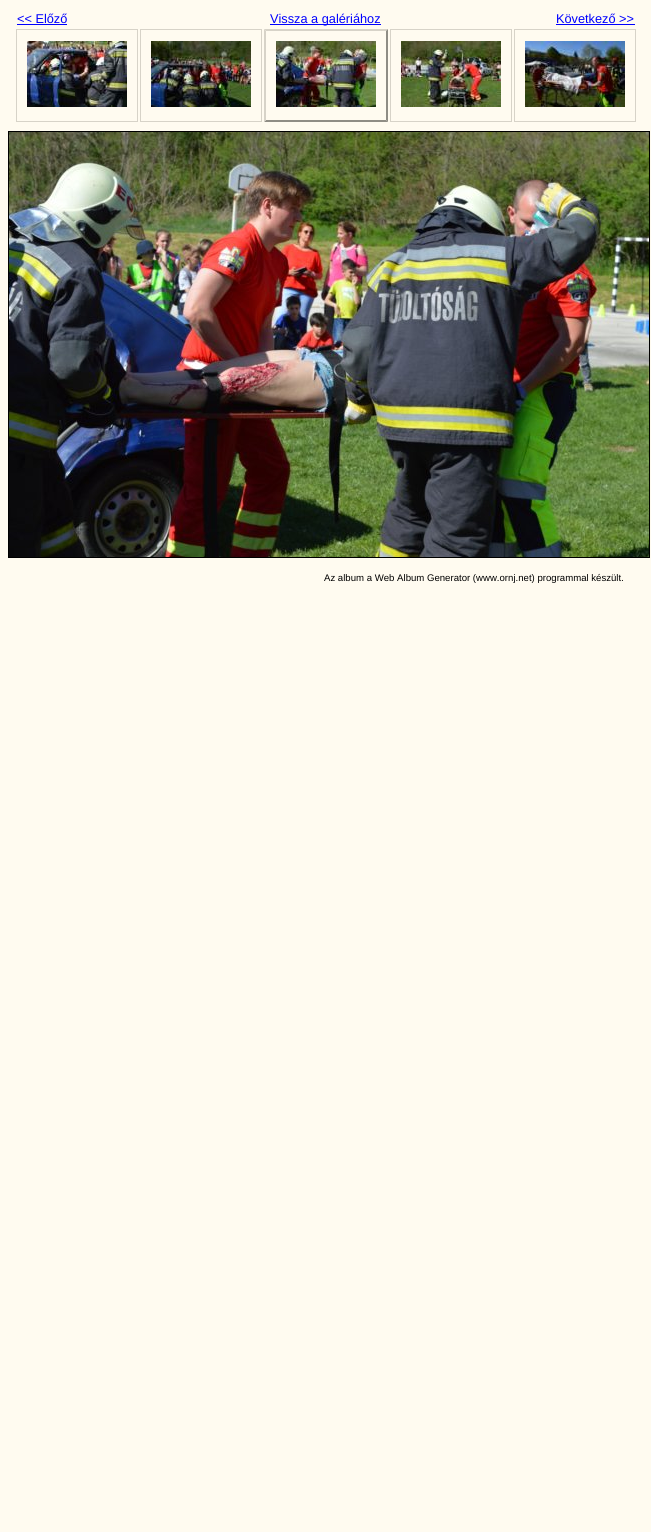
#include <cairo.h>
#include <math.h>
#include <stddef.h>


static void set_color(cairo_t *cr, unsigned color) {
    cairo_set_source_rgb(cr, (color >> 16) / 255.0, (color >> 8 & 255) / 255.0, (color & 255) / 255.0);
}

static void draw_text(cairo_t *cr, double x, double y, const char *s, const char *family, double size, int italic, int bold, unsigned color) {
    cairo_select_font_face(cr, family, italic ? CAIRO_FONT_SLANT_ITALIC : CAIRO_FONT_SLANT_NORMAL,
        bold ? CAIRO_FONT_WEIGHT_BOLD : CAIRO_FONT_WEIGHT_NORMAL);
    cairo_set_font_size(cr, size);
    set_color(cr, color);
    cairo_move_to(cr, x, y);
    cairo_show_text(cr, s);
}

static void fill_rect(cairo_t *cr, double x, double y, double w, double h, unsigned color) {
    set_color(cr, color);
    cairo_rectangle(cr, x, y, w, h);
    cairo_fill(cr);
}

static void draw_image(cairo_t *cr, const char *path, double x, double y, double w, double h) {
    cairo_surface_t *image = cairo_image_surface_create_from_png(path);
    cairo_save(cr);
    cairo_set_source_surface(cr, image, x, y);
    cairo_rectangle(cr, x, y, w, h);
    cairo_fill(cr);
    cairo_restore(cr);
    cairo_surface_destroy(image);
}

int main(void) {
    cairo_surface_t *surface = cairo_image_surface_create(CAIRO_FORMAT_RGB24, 651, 1532);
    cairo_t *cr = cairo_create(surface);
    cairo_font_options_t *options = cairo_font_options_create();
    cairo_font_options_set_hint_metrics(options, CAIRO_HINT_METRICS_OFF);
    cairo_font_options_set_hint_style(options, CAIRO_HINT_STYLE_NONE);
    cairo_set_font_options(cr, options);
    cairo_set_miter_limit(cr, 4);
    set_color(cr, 0xFFFBF0);
    cairo_paint(cr);
    draw_text(cr, 17, 23, "<< Előző", "Liberation Sans", 12.75, 0, 0, 0x0000FF);
    fill_rect(cr, 17, 24, 50, 1, 0x0000FF);
    fill_rect(cr, 270, 24, 111, 1, 0x0000FF);
    draw_text(cr, 270, 23, "Vissza a galériához", "Liberation Sans", 12.75, 0, 0, 0x0000FF);
    draw_text(cr, 556, 23, "Következő >>", "Liberation Sans", 12.75, 0, 0, 0x0000FF);
    fill_rect(cr, 556, 24, 79, 1, 0x0000FF);
    cairo_rectangle(cr, 16.5, 29.5, 121, 92);
    set_color(cr, 0xD7D3C8);
    cairo_set_line_width(cr, 1);
    cairo_stroke(cr);
    draw_image(cr, "assets/img1.png", 27, 41, 100, 66);
    cairo_rectangle(cr, 140.5, 29.5, 121, 92);
    cairo_stroke(cr);
    draw_image(cr, "assets/img2.png", 151, 41, 100, 66);
    cairo_new_path(cr);
    cairo_move_to(cr, 264, 29);
    cairo_line_to(cr, 388, 29);
    cairo_line_to(cr, 386, 31);
    cairo_line_to(cr, 266, 31);
    cairo_close_path(cr);
    cairo_fill(cr);
    set_color(cr, 0x8F8D85);
    cairo_new_path(cr);
    cairo_move_to(cr, 388, 29);
    cairo_line_to(cr, 388, 122);
    cairo_line_to(cr, 386, 120);
    cairo_line_to(cr, 386, 31);
    cairo_close_path(cr);
    cairo_fill(cr);
    cairo_new_path(cr);
    cairo_move_to(cr, 388, 122);
    cairo_line_to(cr, 264, 122);
    cairo_line_to(cr, 266, 120);
    cairo_line_to(cr, 386, 120);
    cairo_close_path(cr);
    cairo_fill(cr);
    set_color(cr, 0xD7D3C8);
    cairo_new_path(cr);
    cairo_move_to(cr, 264, 122);
    cairo_line_to(cr, 264, 29);
    cairo_line_to(cr, 266, 31);
    cairo_line_to(cr, 266, 120);
    cairo_close_path(cr);
    cairo_fill(cr);
    draw_image(cr, "assets/img3.png", 276, 41, 100, 66);
    cairo_rectangle(cr, 390.5, 29.5, 121, 92);
    cairo_stroke(cr);
    draw_image(cr, "assets/img4.png", 401, 41, 100, 66);
    cairo_rectangle(cr, 514.5, 29.5, 121, 92);
    cairo_stroke(cr);
    draw_image(cr, "assets/img5.png", 525, 41, 100, 66);
    cairo_rectangle(cr, 8.5, 131.5, 641, 426);
    set_color(cr, 0x000000);
    cairo_stroke(cr);
    draw_image(cr, "assets/img6.png", 9, 132, 640, 425);
    draw_text(cr, 324, 581, "Az album a Web Album Generator (www.ornj.net) programmal készült.", "Liberation Sans", 9.6, 0, 0, 0x000000);
    cairo_surface_write_to_png(surface, "output.png");
    cairo_font_options_destroy(options);
    cairo_destroy(cr);
    cairo_surface_destroy(surface);
    return 0;
}
